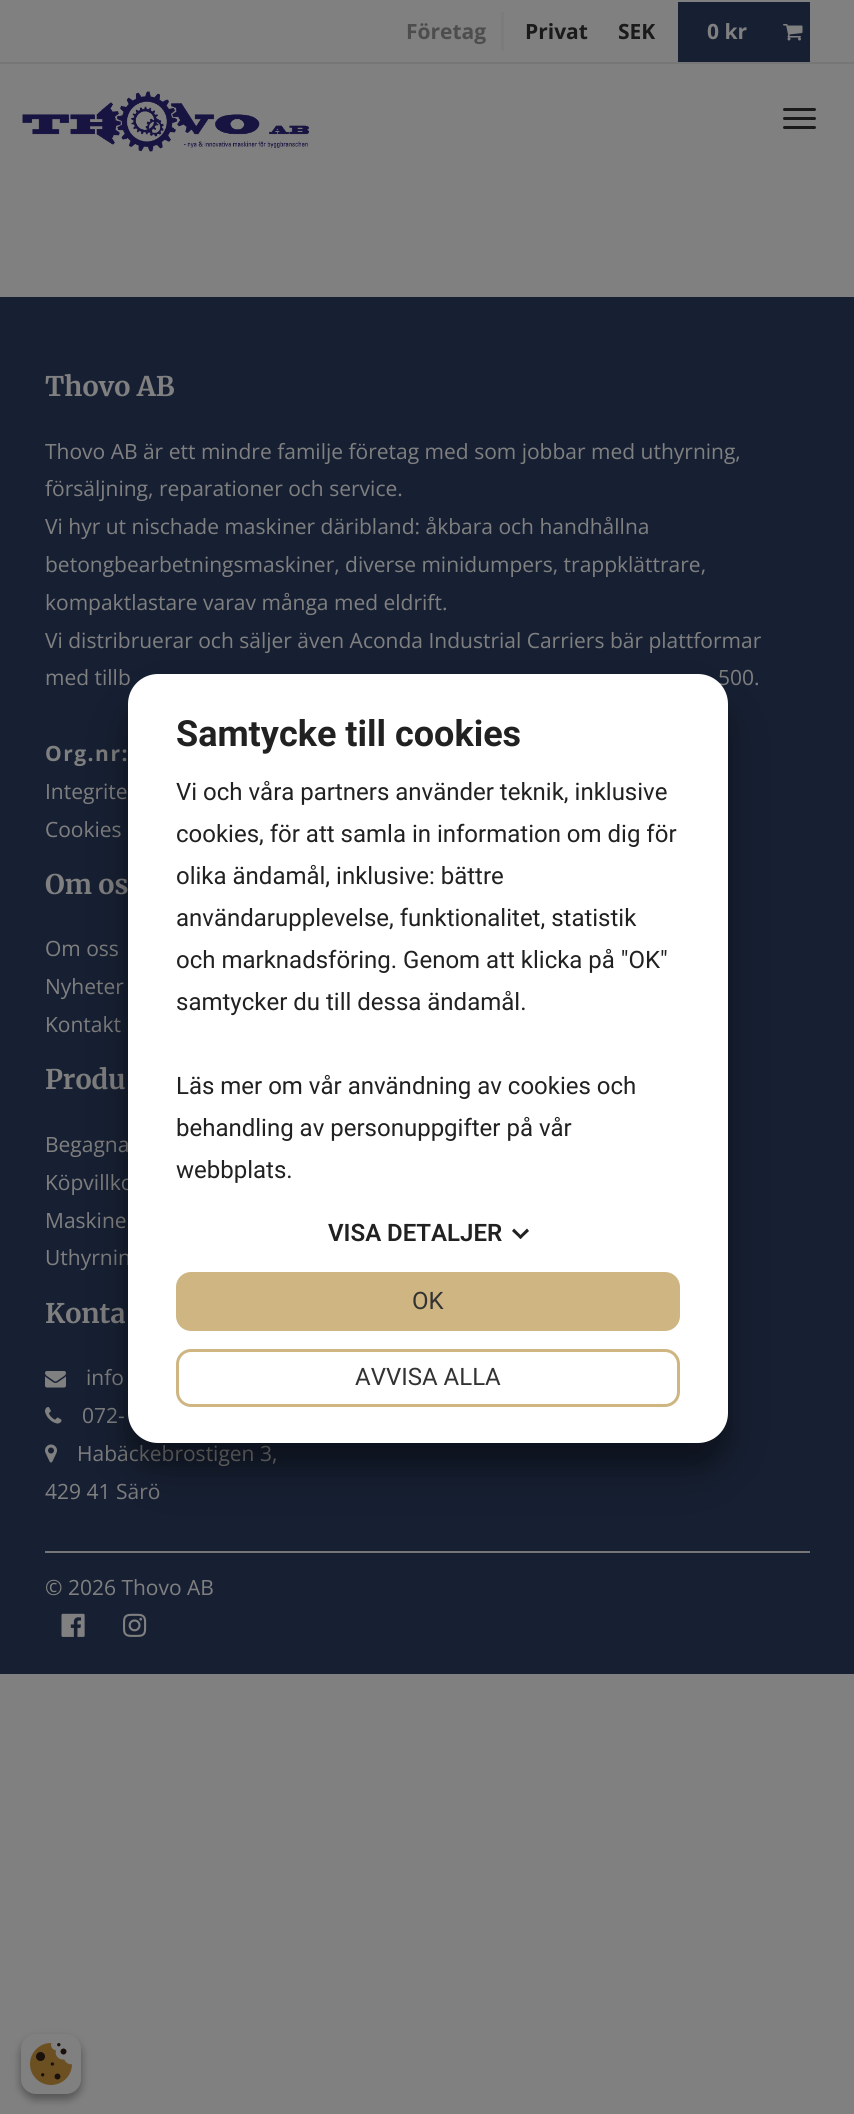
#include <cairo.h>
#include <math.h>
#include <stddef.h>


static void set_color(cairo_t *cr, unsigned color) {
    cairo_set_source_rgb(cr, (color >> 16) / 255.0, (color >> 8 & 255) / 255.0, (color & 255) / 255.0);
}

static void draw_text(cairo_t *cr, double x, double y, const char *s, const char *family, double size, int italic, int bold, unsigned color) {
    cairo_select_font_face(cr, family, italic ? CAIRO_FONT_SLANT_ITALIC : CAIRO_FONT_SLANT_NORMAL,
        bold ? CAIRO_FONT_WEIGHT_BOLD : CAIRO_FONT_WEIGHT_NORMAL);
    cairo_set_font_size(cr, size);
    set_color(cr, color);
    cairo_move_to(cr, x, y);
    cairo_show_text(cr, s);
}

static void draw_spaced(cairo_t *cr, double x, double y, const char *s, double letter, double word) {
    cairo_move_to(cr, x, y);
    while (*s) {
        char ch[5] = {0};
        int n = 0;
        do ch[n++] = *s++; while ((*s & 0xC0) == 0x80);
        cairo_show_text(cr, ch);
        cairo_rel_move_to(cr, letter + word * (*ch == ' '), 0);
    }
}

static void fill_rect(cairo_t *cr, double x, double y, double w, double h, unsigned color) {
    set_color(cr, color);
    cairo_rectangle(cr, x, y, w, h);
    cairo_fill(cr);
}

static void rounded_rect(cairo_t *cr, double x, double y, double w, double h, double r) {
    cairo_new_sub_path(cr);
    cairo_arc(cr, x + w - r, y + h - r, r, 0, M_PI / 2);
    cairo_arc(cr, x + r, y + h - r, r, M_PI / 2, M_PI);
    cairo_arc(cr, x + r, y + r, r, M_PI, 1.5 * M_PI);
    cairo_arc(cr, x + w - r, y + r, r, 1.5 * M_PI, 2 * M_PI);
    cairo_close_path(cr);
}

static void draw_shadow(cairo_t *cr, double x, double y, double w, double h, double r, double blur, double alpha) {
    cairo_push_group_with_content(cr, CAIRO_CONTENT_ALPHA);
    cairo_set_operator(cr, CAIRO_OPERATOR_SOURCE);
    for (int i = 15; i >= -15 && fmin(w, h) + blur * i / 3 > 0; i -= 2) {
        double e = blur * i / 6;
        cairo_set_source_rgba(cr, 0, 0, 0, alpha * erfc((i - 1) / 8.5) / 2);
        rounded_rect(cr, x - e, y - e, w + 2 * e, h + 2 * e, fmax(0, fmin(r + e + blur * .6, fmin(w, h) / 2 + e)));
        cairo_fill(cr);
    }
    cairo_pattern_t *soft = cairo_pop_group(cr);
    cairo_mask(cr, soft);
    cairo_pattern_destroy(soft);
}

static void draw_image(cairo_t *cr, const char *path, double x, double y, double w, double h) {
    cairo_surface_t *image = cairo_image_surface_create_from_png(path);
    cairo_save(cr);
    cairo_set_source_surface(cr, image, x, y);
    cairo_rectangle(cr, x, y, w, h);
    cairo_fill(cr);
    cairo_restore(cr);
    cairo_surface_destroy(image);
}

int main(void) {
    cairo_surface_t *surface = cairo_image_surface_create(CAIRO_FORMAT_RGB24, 854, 2114);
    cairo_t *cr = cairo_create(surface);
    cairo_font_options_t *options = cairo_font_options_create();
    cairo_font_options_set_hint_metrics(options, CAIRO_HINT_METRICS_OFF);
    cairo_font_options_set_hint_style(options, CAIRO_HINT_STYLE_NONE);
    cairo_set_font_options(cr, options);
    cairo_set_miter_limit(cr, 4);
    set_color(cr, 0x808080);
    cairo_paint(cr);
    fill_rect(cr, 0, 62, 854, 2, 0x777777);
    fill_rect(cr, 501, 12, 3, 39, 0x7C7C7C);
    draw_text(cr, 406, 39, "Företag", "Open Sans", 21, 0, 1, 0x4D4D4D);
    draw_text(cr, 525, 39, "Privat", "Open Sans", 21, 0, 1, 0x1A1A1A);
    draw_text(cr, 618, 39, "SEK", "Open Sans", 21, 0, 1, 0x1A1A1A);
    fill_rect(cr, 678, 2, 132, 60, 0x172033);
    draw_text(cr, 707, 39, "0 kr", "Open Sans", 21, 0, 1, 0x808080);
    draw_image(cr, "assets/img1.png", 783, 24, 20, 17);
    draw_image(cr, "assets/img2.png", 22, 91, 287, 61);
    set_color(cr, 0x1A1A1A);
    rounded_rect(cr, 783, 108, 33, 3, 1.5);
    cairo_fill(cr);
    rounded_rect(cr, 783, 117, 33, 3, 1.5);
    cairo_fill(cr);
    rounded_rect(cr, 783, 126, 33, 3, 1.5);
    cairo_fill(cr);
    fill_rect(cr, 0, 297, 854, 1377, 0x172033);
    draw_text(cr, 45, 396, "Thovo AB", "Merriweather", 27, 0, 1, 0x808080);
    draw_text(cr, 45, 459, "Thovo AB är ett mindre familje företag med som jobbar med uthyrning,", "Open Sans", 21, 0, 0, 0x808080);
    draw_text(cr, 45, 496, "försäljning, reparationer och service.", "Open Sans", 21, 0, 0, 0x808080);
    draw_text(cr, 45, 534, "Vi hyr ut nischade maskiner däribland: åkbara och handhållna", "Open Sans", 21, 0, 0, 0x808080);
    draw_text(cr, 45, 572, "betongbearbetningsmaskiner, diverse minidumpers, trappklättrare,", "Open Sans", 21, 0, 0, 0x808080);
    draw_text(cr, 45, 610, "kompaktlastare varav många med eldrift.", "Open Sans", 21, 0, 0, 0x808080);
    draw_text(cr, 45, 648, "Vi distribruerar och säljer även Aconda Industrial Carriers bär plattformar", "Open Sans", 21, 0, 0, 0x808080);
    draw_text(cr, 45, 685, "med tillb", "Open Sans", 21, 0, 0, 0x808080);
    draw_text(cr, 718, 685, "500.", "Open Sans", 21, 0, 0, 0x808080);
    cairo_select_font_face(cr, "Open Sans", CAIRO_FONT_SLANT_NORMAL, CAIRO_FONT_WEIGHT_BOLD);
    draw_spaced(cr, 45, 761, "Org.nr:", 1.5, 0);
    draw_text(cr, 45, 799, "Integrite", "Open Sans", 21, 0, 0, 0x808080);
    draw_text(cr, 45, 837, "Cookies", "Open Sans", 21, 0, 0, 0x808080);
    draw_text(cr, 45, 894, "Om os", "Merriweather", 27, 0, 1, 0x808080);
    draw_text(cr, 45, 956, "Om oss", "Open Sans", 21, 0, 0, 0x808080);
    draw_text(cr, 45, 994, "Nyheter", "Open Sans", 21, 0, 0, 0x808080);
    draw_text(cr, 45, 1032, "Kontakt", "Open Sans", 21, 0, 0, 0x808080);
    draw_text(cr, 45, 1089, "Produ", "Merriweather", 27, 0, 1, 0x808080);
    draw_text(cr, 45, 1152, "Begagna", "Open Sans", 21, 0, 0, 0x808080);
    draw_text(cr, 45, 1190, "Köpvillko", "Open Sans", 21, 0, 0, 0x808080);
    draw_text(cr, 45, 1228, "Maskine", "Open Sans", 21, 0, 0, 0x808080);
    draw_text(cr, 45, 1265, "Uthyrnin", "Open Sans", 21, 0, 0, 0x808080);
    draw_text(cr, 45, 1323, "Konta", "Merriweather", 27, 0, 1, 0x808080);
    draw_image(cr, "assets/img3.png", 45, 1371, 21, 17);
    draw_text(cr, 86, 1385, "info", "Open Sans", 21, 0, 0, 0x808080);
    draw_image(cr, "assets/img4.png", 45, 1407, 17, 17);
    draw_text(cr, 82, 1423, "072-", "Open Sans", 21, 0, 0, 0x808080);
    draw_image(cr, "assets/img5.png", 45, 1444, 12, 19);
    draw_text(cr, 77, 1461, "Habäckebrostigen 3,", "Open Sans", 21, 0, 0, 0x808080);
    draw_text(cr, 45, 1499, "429 41 Särö", "Open Sans", 21, 0, 0, 0x808080);
    fill_rect(cr, 45, 1551, 765, 2, 0x777777);
    draw_text(cr, 45, 1595, "© 2026 Thovo AB", "Open Sans", 21, 0, 0, 0x808080);
    draw_image(cr, "assets/img6.png", 61, 1613, 24, 24);
    draw_image(cr, "assets/img7.png", 123, 1613, 24, 24);
    set_color(cr, 0x000000);
    draw_shadow(cr, 128, 696, 600, 770, 30, 9, 0.22);
    draw_shadow(cr, 128, 702, 600, 770, 30, 28.5, 0.3);
    set_color(cr, 0xFFFFFF);
    rounded_rect(cr, 128, 674, 600, 769, 30);
    cairo_fill(cr);
    draw_text(cr, 176, 746, "Samtycke till cookies", "Roboto", 36, 0, 1, 0x212121);
    draw_text(cr, 176, 800, "Vi och våra partners använder teknik, inklusive", "Roboto", 24, 0, 0, 0x212121);
    draw_text(cr, 176, 842, "cookies, för att samla in information om dig för", "Roboto", 24, 0, 0, 0x212121);
    draw_text(cr, 176, 884, "olika ändamål, inklusive: bättre", "Roboto", 24, 0, 0, 0x212121);
    draw_text(cr, 176, 926, "användarupplevelse, funktionalitet, statistik", "Roboto", 24, 0, 0, 0x212121);
    draw_text(cr, 176, 968, "och marknadsföring. Genom att klicka på \"OK\"", "Roboto", 24, 0, 0, 0x212121);
    draw_text(cr, 176, 1010, "samtycker du till dessa ändamål.", "Roboto", 24, 0, 0, 0x212121);
    draw_text(cr, 176, 1094, "Läs mer om vår användning av cookies och", "Roboto", 24, 0, 0, 0x212121);
    draw_text(cr, 176, 1136, "behandling av personuppgifter på vår", "Roboto", 24, 0, 0, 0x212121);
    draw_text(cr, 176, 1178, "webbplats.", "Roboto", 24, 0, 0, 0x212121);
    draw_text(cr, 328, 1241, "VISA DETALJER", "Roboto SemiBold", 24, 0, 0, 0x212121);
    cairo_new_path(cr);
    cairo_move_to(cr, 527, 1228.5);
    cairo_line_to(cr, 529, 1231);
    cairo_line_to(cr, 520.5, 1239);
    cairo_line_to(cr, 518.5, 1237);
    cairo_close_path(cr);
    cairo_fill(cr);
    cairo_new_path(cr);
    cairo_move_to(cr, 514, 1228.5);
    cairo_line_to(cr, 522.5, 1237);
    cairo_line_to(cr, 520.5, 1239);
    cairo_line_to(cr, 512, 1231);
    cairo_close_path(cr);
    cairo_fill(cr);
    set_color(cr, 0xCEB582);
    rounded_rect(cr, 177.5, 1273.5, 501, 56, 13.5);
    cairo_fill_preserve(cr);
    cairo_set_line_width(cr, 3);
    cairo_stroke(cr);
    draw_text(cr, 412, 1309, "OK", "Roboto", 24, 0, 0, 0x333333);
    rounded_rect(cr, 177.5, 1350.5, 501, 55, 13.5);
    set_color(cr, 0xCEB582);
    cairo_stroke(cr);
    draw_text(cr, 355, 1385, "AVVISA ALLA", "Roboto", 24, 0, 0, 0x333333);
    set_color(cr, 0x000000);
    draw_shadow(cr, 21, 2039, 60, 60, 15, 4.5, 0.23);
    draw_shadow(cr, 21, 2039, 60, 60, 15, 4.5, 0.16);
    set_color(cr, 0x808080);
    rounded_rect(cr, 21, 2034, 60, 60, 15);
    cairo_fill(cr);
    draw_image(cr, "assets/img8.png", 30, 2043, 42, 42);
    cairo_surface_write_to_png(surface, "output.png");
    cairo_font_options_destroy(options);
    cairo_destroy(cr);
    cairo_surface_destroy(surface);
    return 0;
}
